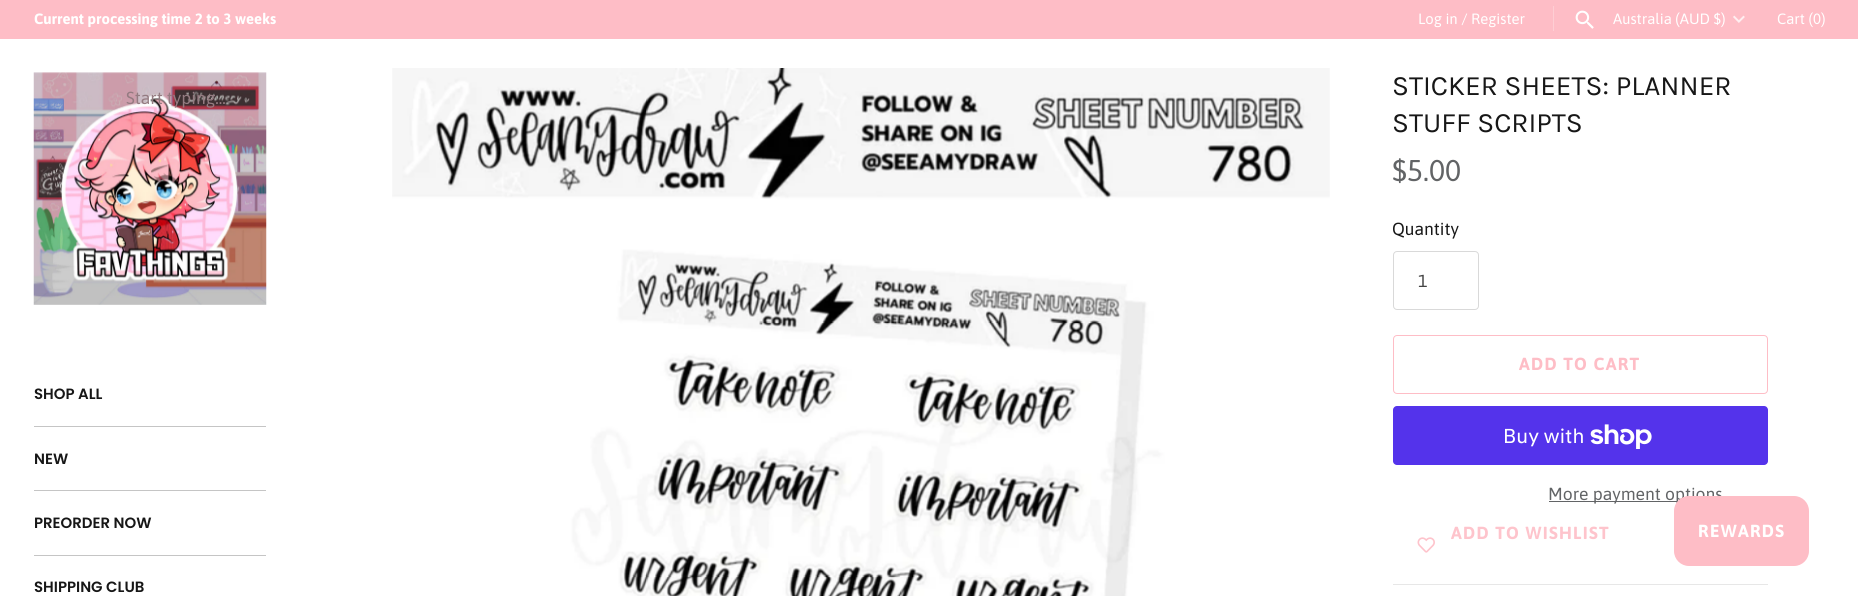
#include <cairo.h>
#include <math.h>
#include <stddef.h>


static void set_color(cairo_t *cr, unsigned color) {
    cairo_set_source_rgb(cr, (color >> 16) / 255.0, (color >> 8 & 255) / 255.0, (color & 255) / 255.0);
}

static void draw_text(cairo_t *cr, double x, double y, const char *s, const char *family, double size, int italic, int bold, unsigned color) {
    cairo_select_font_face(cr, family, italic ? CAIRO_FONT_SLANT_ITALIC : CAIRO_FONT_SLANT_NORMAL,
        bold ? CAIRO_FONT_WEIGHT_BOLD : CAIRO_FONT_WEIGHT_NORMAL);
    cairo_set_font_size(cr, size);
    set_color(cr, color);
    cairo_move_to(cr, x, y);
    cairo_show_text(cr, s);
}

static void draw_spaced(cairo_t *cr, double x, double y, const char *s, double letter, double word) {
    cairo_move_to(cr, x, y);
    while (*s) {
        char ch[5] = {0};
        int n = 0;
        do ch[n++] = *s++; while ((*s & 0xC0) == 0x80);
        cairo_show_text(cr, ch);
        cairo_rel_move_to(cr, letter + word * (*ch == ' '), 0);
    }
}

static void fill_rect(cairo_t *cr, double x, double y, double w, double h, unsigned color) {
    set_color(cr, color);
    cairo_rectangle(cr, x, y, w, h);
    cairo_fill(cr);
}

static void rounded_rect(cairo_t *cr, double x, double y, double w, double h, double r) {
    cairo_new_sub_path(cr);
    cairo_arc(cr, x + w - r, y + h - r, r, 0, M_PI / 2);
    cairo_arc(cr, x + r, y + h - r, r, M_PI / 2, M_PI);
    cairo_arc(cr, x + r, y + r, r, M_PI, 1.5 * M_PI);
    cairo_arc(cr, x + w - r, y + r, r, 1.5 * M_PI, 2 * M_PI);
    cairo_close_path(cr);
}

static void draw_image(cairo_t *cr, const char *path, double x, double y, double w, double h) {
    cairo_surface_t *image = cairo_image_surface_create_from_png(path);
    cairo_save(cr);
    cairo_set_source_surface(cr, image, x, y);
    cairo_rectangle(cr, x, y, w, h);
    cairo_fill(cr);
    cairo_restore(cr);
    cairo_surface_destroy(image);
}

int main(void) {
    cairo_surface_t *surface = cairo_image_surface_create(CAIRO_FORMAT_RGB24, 1858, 596);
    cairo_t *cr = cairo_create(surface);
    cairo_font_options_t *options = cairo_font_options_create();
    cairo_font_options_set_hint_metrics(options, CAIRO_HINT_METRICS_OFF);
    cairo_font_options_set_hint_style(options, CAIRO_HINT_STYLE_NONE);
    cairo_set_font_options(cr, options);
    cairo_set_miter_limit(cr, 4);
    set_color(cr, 0xFFFFFF);
    cairo_paint(cr);
    fill_rect(cr, 0, 0, 1858, 39, 0xFEBDC6);
    draw_text(cr, 34, 24, "Current processing time 2 to 3 weeks", "Asap", 14.9, 0, 1, 0xFFFFFF);
    draw_text(cr, 1418, 24, "Log in / Register", "Asap", 14.9, 0, 0, 0xFFFFFF);
    fill_rect(cr, 1553, 6, 1, 25, 0xFECED4);
    draw_image(cr, "assets/img1.png", 1575, 10, 19, 19);
    draw_text(cr, 1613, 24, "Australia (AUD $)", "Asap", 14.9, 0, 0, 0xFFFFFF);
    draw_image(cr, "assets/img2.png", 1733, 15, 12, 8);
    draw_text(cr, 1777, 24, "Cart (0)", "Asap", 14.9, 0, 0, 0xFFFFFF);
    draw_image(cr, "assets/img3.png", 33, 72, 234, 233);
    draw_text(cr, 126, 104, "Start typing...", "Asap", 17.5, 0, 0, 0x947B81);
    fill_rect(cr, 34, 426, 232, 1, 0xC5C5C5);
    draw_text(cr, 34, 399, "SHOP ALL", "Poppins SemiBold", 14.9, 0, 0, 0x171717);
    fill_rect(cr, 34, 490, 232, 1, 0xC5C5C5);
    draw_text(cr, 34, 464, "NEW", "Poppins SemiBold", 14.9, 0, 0, 0x171717);
    fill_rect(cr, 34, 555, 232, 1, 0xC5C5C5);
    draw_text(cr, 34, 528, "PREORDER NOW", "Poppins SemiBold", 14.9, 0, 0, 0x171717);
    draw_text(cr, 34, 592, "SHIPPING CLUB", "Poppins SemiBold", 14.9, 0, 0, 0x171717);
    draw_image(cr, "assets/img4.png", 392, 68, 938, 528);
    draw_text(cr, 1392, 95, "STICKER SHEETS: PLANNER", "Karla", 28, 0, 0, 0x171717);
    draw_text(cr, 1392, 132, "STUFF SCRIPTS", "Karla", 28, 0, 0, 0x171717);
    draw_text(cr, 1392, 181, "$5.00", "Asap", 30, 0, 0, 0x626466);
    draw_text(cr, 1392, 235, "Quantity", "Asap", 17.5, 0, 0, 0x171717);
    rounded_rect(cr, 1393.5, 251.5, 85, 58, 3.5);
    set_color(cr, 0xD9D9D9);
    cairo_set_line_width(cr, 1);
    cairo_stroke(cr);
    draw_text(cr, 1418, 287, "1", "Asap", 17.5, 0, 0, 0x444444);
    rounded_rect(cr, 1393.5, 335.5, 374, 58, 3.5);
    set_color(cr, 0xFEBDC6);
    cairo_stroke(cr);
    cairo_select_font_face(cr, "Asap", CAIRO_FONT_SLANT_NORMAL, CAIRO_FONT_WEIGHT_BOLD);
    draw_spaced(cr, 1519, 370, "ADD TO CART", 1.25, 0);
    set_color(cr, 0x5433EB);
    rounded_rect(cr, 1393, 406, 375, 59, 4);
    cairo_fill(cr);
    draw_text(cr, 1503, 443, "Buy with", "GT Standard", 20, 0, 0, 0xFFFFFF);
    draw_image(cr, "assets/img5.png", 1590, 424, 62, 25);
    fill_rect(cr, 1549, 501, 129, 1, 0x626466);
    draw_text(cr, 1548, 500, "More payment options", "Asap", 17.5, 0, 0, 0x626466);
    cairo_select_font_face(cr, "Asap", CAIRO_FONT_SLANT_NORMAL, CAIRO_FONT_WEIGHT_BOLD);
    set_color(cr, 0xFEC4CC);
    draw_spaced(cr, 1451, 539, "ADD TO WISHLIST", 1.25, 0);
    draw_image(cr, "assets/img6.png", 1417, 537, 18, 16);
    fill_rect(cr, 1393, 584, 375, 1, 0xE7E7E7);
    set_color(cr, 0xFEBDC6);
    rounded_rect(cr, 1674, 496, 135, 70, 15);
    cairo_fill(cr);
    set_color(cr, 0xFFFFFF);
    draw_spaced(cr, 1698, 537, "REWARDS", 1.25, 0);
    cairo_surface_write_to_png(surface, "output.png");
    cairo_font_options_destroy(options);
    cairo_destroy(cr);
    cairo_surface_destroy(surface);
    return 0;
}
